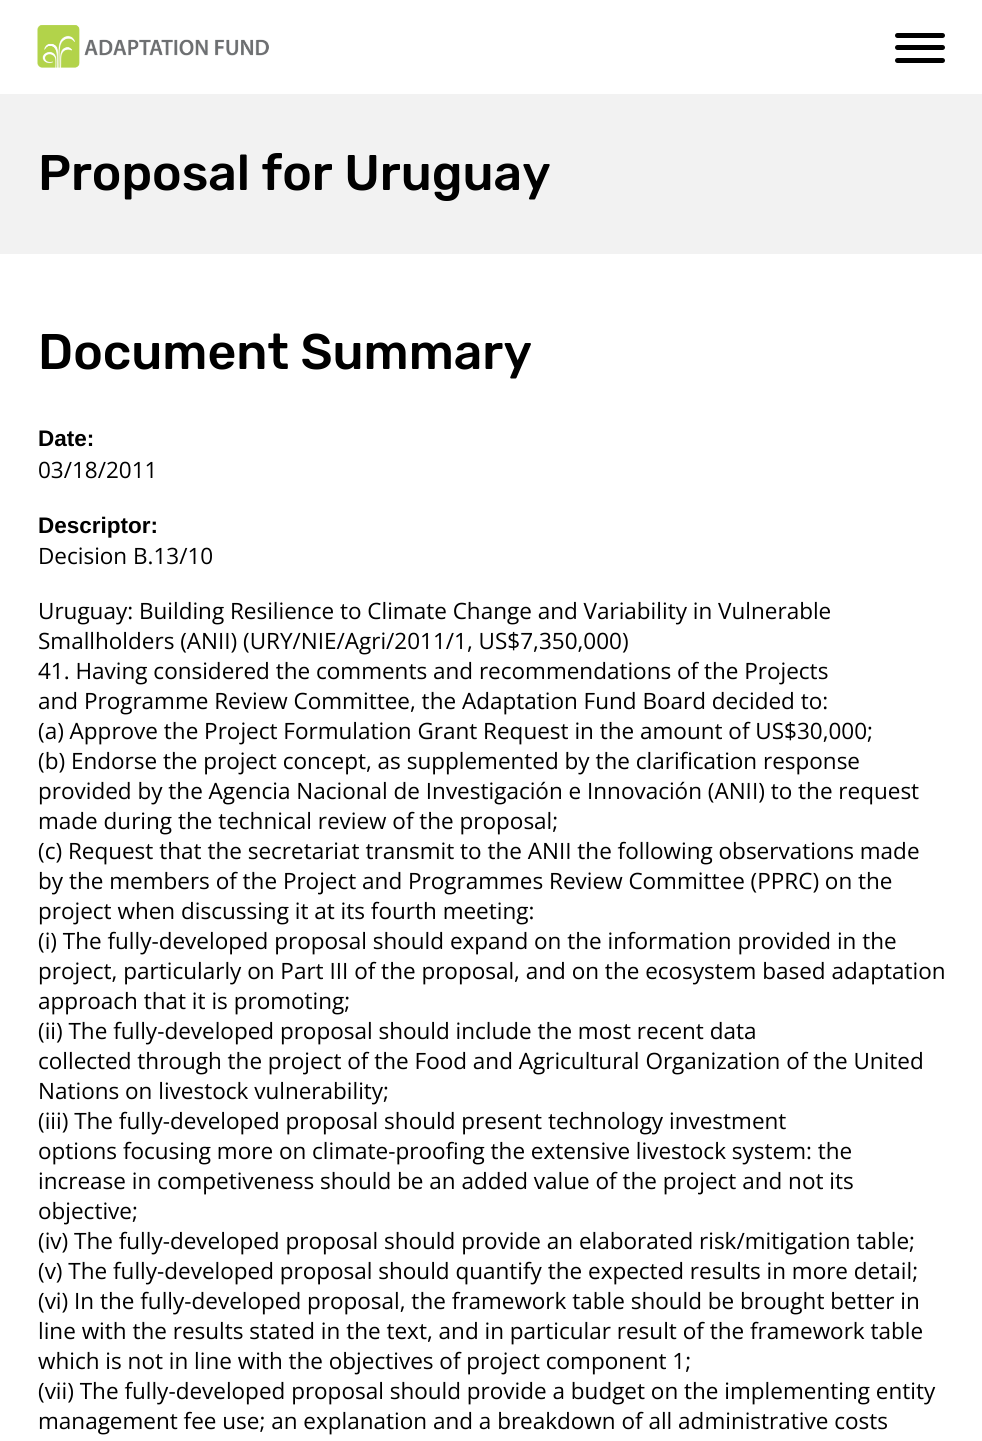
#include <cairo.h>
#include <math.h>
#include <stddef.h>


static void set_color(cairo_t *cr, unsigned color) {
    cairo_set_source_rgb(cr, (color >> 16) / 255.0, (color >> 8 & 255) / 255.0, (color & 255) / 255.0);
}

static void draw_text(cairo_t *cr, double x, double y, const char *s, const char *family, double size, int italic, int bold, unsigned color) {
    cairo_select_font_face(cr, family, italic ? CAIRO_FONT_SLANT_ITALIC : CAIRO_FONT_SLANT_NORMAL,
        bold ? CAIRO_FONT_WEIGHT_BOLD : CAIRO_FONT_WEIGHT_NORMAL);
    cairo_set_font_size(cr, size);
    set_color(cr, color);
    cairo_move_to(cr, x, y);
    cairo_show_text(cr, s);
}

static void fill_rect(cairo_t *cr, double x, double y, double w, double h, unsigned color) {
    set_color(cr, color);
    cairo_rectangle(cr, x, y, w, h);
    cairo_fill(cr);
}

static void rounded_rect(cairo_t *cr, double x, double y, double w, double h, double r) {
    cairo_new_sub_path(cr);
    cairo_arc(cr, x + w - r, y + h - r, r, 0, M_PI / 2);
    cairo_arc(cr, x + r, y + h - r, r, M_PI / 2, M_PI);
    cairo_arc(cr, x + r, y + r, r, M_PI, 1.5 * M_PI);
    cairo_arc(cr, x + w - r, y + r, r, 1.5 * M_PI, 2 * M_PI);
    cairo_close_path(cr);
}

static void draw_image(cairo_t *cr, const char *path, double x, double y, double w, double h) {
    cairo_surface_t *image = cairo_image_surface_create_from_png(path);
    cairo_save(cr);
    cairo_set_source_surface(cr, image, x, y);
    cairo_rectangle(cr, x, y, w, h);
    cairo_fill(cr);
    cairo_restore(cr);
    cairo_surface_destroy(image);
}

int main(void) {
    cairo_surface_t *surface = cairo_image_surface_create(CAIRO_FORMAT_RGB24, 982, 1441);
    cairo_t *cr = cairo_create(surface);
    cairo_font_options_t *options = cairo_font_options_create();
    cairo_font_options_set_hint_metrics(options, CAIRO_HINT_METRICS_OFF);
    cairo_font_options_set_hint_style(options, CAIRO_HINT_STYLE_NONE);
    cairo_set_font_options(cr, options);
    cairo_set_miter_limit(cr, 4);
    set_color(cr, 0xFFFFFF);
    cairo_paint(cr);
    draw_image(cr, "assets/img1.png", 37, 25, 232, 43);
    set_color(cr, 0x000000);
    rounded_rect(cr, 895, 33, 50, 5, 2.5);
    cairo_fill(cr);
    rounded_rect(cr, 895, 45, 50, 5, 2.5);
    cairo_fill(cr);
    rounded_rect(cr, 895, 58, 50, 5, 2.5);
    cairo_fill(cr);
    fill_rect(cr, 0, 94, 982, 160, 0xF2F2F2);
    draw_text(cr, 38, 190, "Proposal for Uruguay", "Rubik Medium", 50, 0, 0, 0x000000);
    draw_text(cr, 38, 369, "Document Summary", "Rubik Medium", 50, 0, 0, 0x000000);
    draw_text(cr, 38, 446, "Date:", "Liberation Sans", 22.5, 0, 1, 0x000000);
    draw_text(cr, 38, 478, "03/18/2011", "Open Sans", 22.5, 0, 0, 0x000000);
    draw_text(cr, 38, 533, "Descriptor:", "Liberation Sans", 22.5, 0, 1, 0x000000);
    draw_text(cr, 38, 564, "Decision B.13/10", "Open Sans", 22.5, 0, 0, 0x000000);
    draw_text(cr, 38, 619, "Uruguay: Building Resilience to Climate Change and Variability in Vulnerable", "Open Sans", 22.5, 0, 0, 0x000000);
    draw_text(cr, 38, 649, "Smallholders (ANII) (URY/NIE/Agri/2011/1, US$7,350,000)", "Open Sans", 22.5, 0, 0, 0x000000);
    draw_text(cr, 38, 679, "41. Having considered the comments and recommendations of the Projects", "Open Sans", 22.5, 0, 0, 0x000000);
    draw_text(cr, 38, 709, "and Programme Review Committee, the Adaptation Fund Board decided to:", "Open Sans", 22.5, 0, 0, 0x000000);
    draw_text(cr, 38, 739, "(a) Approve the Project Formulation Grant Request in the amount of US$30,000;", "Open Sans", 22.5, 0, 0, 0x000000);
    draw_text(cr, 38, 769, "(b) Endorse the project concept, as supplemented by the clarification response", "Open Sans", 22.5, 0, 0, 0x000000);
    draw_text(cr, 38, 799, "provided by the Agencia Nacional de Investigación e Innovación (ANII) to the request", "Open Sans", 22.5, 0, 0, 0x000000);
    draw_text(cr, 38, 829, "made during the technical review of the proposal;", "Open Sans", 22.5, 0, 0, 0x000000);
    draw_text(cr, 38, 859, "(c) Request that the secretariat transmit to the ANII the following observations made", "Open Sans", 22.5, 0, 0, 0x000000);
    draw_text(cr, 38, 889, "by the members of the Project and Programmes Review Committee (PPRC) on the", "Open Sans", 22.5, 0, 0, 0x000000);
    draw_text(cr, 38, 919, "project when discussing it at its fourth meeting:", "Open Sans", 22.5, 0, 0, 0x000000);
    draw_text(cr, 38, 949, "(i) The fully-developed proposal should expand on the information provided in the", "Open Sans", 22.5, 0, 0, 0x000000);
    draw_text(cr, 38, 979, "project, particularly on Part III of the proposal, and on the ecosystem based adaptation", "Open Sans", 22.5, 0, 0, 0x000000);
    draw_text(cr, 38, 1009, "approach that it is promoting;", "Open Sans", 22.5, 0, 0, 0x000000);
    draw_text(cr, 38, 1039, "(ii) The fully-developed proposal should include the most recent data", "Open Sans", 22.5, 0, 0, 0x000000);
    draw_text(cr, 38, 1069, "collected through the project of the Food and Agricultural Organization of the United", "Open Sans", 22.5, 0, 0, 0x000000);
    draw_text(cr, 38, 1099, "Nations on livestock vulnerability;", "Open Sans", 22.5, 0, 0, 0x000000);
    draw_text(cr, 38, 1129, "(iii) The fully-developed proposal should present technology investment", "Open Sans", 22.5, 0, 0, 0x000000);
    draw_text(cr, 38, 1159, "options focusing more on climate-proofing the extensive livestock system: the", "Open Sans", 22.5, 0, 0, 0x000000);
    draw_text(cr, 38, 1189, "increase in competiveness should be an added value of the project and not its", "Open Sans", 22.5, 0, 0, 0x000000);
    draw_text(cr, 38, 1219, "objective;", "Open Sans", 22.5, 0, 0, 0x000000);
    draw_text(cr, 38, 1249, "(iv) The fully-developed proposal should provide an elaborated risk/mitigation table;", "Open Sans", 22.5, 0, 0, 0x000000);
    draw_text(cr, 38, 1279, "(v) The fully-developed proposal should quantify the expected results in more detail;", "Open Sans", 22.5, 0, 0, 0x000000);
    draw_text(cr, 38, 1309, "(vi) In the fully-developed proposal, the framework table should be brought better in", "Open Sans", 22.5, 0, 0, 0x000000);
    draw_text(cr, 38, 1339, "line with the results stated in the text, and in particular result of the framework table", "Open Sans", 22.5, 0, 0, 0x000000);
    draw_text(cr, 38, 1369, "which is not in line with the objectives of project component 1;", "Open Sans", 22.5, 0, 0, 0x000000);
    draw_text(cr, 38, 1399, "(vii) The fully-developed proposal should provide a budget on the implementing entity", "Open Sans", 22.5, 0, 0, 0x000000);
    draw_text(cr, 38, 1429, "management fee use; an explanation and a breakdown of all administrative costs", "Open Sans", 22.5, 0, 0, 0x000000);
    cairo_surface_write_to_png(surface, "output.png");
    cairo_font_options_destroy(options);
    cairo_destroy(cr);
    cairo_surface_destroy(surface);
    return 0;
}
